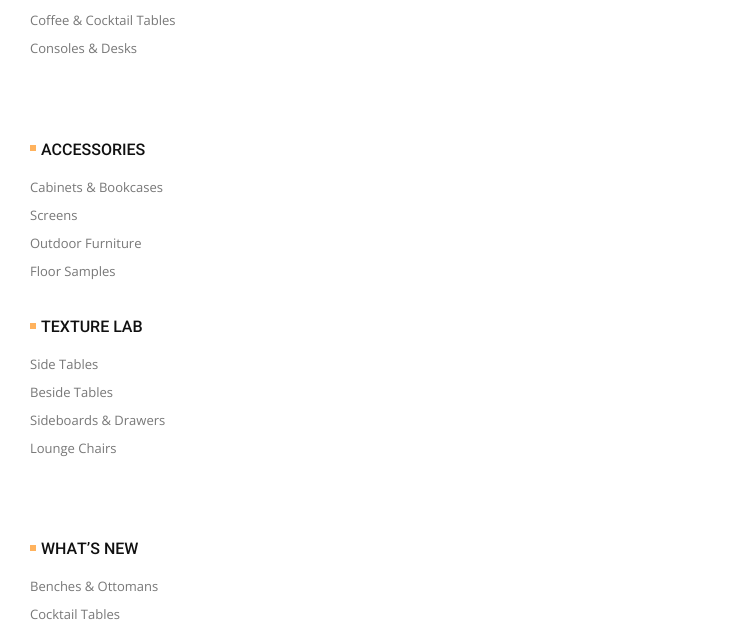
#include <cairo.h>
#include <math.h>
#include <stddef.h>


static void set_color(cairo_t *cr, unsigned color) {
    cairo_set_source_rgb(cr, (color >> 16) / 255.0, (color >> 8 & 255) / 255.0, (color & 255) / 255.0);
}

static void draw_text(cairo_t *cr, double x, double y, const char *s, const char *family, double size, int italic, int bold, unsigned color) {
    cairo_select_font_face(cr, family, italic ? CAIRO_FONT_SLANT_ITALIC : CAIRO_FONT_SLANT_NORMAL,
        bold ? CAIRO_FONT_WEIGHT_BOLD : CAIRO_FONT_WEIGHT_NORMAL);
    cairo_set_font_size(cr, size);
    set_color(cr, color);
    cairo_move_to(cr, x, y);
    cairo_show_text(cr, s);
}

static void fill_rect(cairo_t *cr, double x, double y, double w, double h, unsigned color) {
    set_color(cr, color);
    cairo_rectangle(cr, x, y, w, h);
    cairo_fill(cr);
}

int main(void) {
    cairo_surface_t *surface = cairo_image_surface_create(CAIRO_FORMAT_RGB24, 754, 644);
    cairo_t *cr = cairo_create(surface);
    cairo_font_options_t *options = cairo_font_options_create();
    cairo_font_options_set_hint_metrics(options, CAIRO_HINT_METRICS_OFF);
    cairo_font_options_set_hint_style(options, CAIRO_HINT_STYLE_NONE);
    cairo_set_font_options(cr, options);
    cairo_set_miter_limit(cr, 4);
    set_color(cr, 0xFFFFFF);
    cairo_paint(cr);
    draw_text(cr, 30, 25, "Coffee & Cocktail Tables", "Open Sans", 13, 0, 0, 0x777777);
    draw_text(cr, 30, 53, "Consoles & Desks", "Open Sans", 13, 0, 0, 0x777777);
    fill_rect(cr, 30, 145, 6, 6, 0xFFB25D);
    draw_text(cr, 41, 155, "ACCESSORIES", "Roboto Medium", 16, 0, 0, 0x101010);
    draw_text(cr, 30, 192, "Cabinets & Bookcases", "Open Sans", 13, 0, 0, 0x777777);
    draw_text(cr, 30, 220, "Screens", "Open Sans", 13, 0, 0, 0x777777);
    draw_text(cr, 30, 248, "Outdoor Furniture", "Open Sans", 13, 0, 0, 0x777777);
    draw_text(cr, 30, 276, "Floor Samples", "Open Sans", 13, 0, 0, 0x777777);
    fill_rect(cr, 30, 323, 6, 6, 0xFFB25D);
    draw_text(cr, 41, 332, "TEXTURE LAB", "Roboto Medium", 16, 0, 0, 0x101010);
    draw_text(cr, 30, 369, "Side Tables", "Open Sans", 13, 0, 0, 0x777777);
    draw_text(cr, 30, 397, "Beside Tables", "Open Sans", 13, 0, 0, 0x777777);
    draw_text(cr, 30, 425, "Sideboards & Drawers", "Open Sans", 13, 0, 0, 0x777777);
    draw_text(cr, 30, 453, "Lounge Chairs", "Open Sans", 13, 0, 0, 0x777777);
    fill_rect(cr, 30, 545, 6, 6, 0xFFB25D);
    draw_text(cr, 41, 554, "WHAT’S NEW", "Roboto Medium", 16, 0, 0, 0x101010);
    draw_text(cr, 30, 591, "Benches & Ottomans", "Open Sans", 13, 0, 0, 0x777777);
    draw_text(cr, 30, 619, "Cocktail Tables", "Open Sans", 13, 0, 0, 0x777777);
    cairo_surface_write_to_png(surface, "output.png");
    cairo_font_options_destroy(options);
    cairo_destroy(cr);
    cairo_surface_destroy(surface);
    return 0;
}
